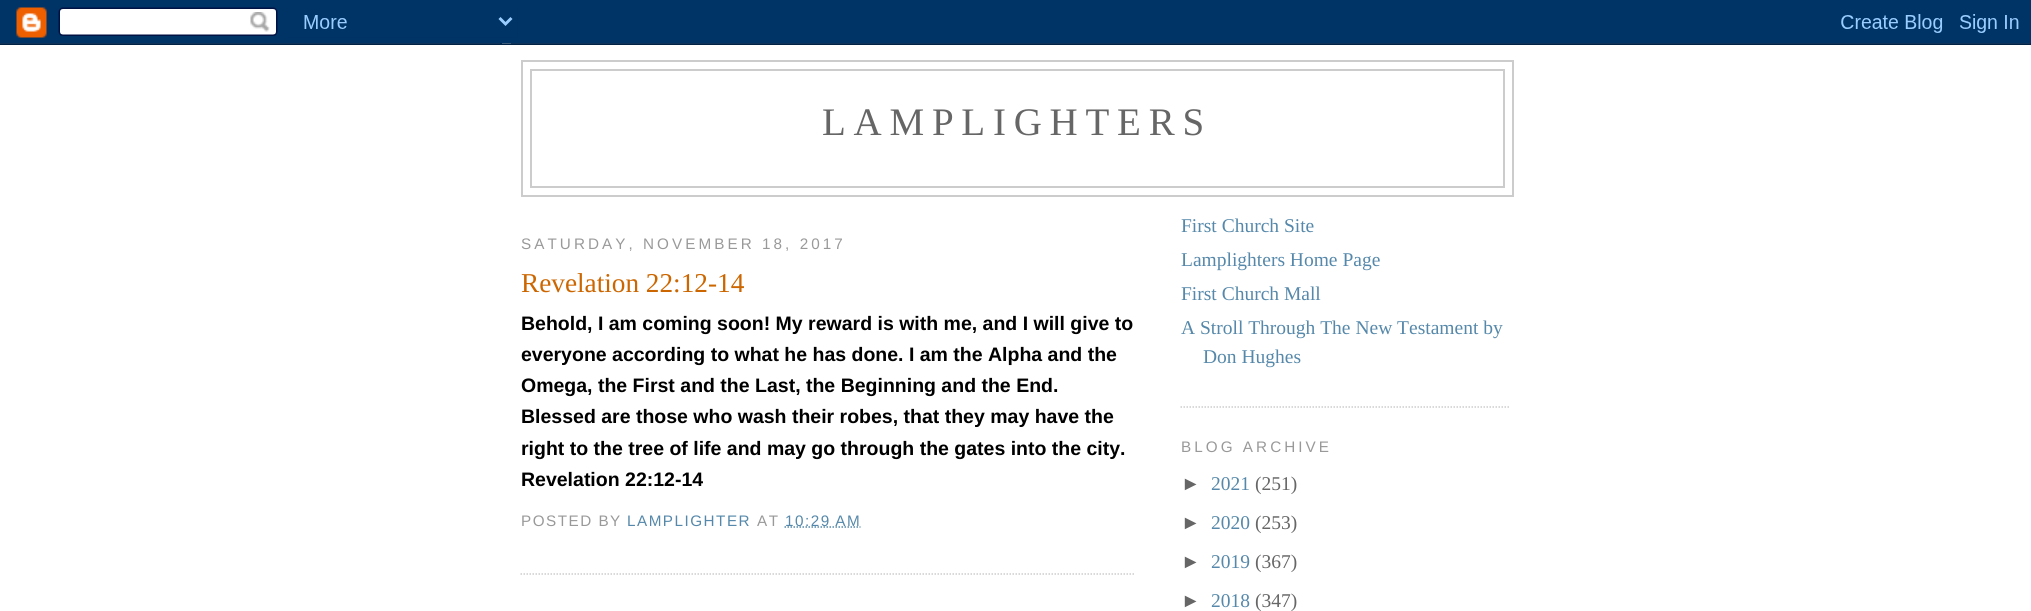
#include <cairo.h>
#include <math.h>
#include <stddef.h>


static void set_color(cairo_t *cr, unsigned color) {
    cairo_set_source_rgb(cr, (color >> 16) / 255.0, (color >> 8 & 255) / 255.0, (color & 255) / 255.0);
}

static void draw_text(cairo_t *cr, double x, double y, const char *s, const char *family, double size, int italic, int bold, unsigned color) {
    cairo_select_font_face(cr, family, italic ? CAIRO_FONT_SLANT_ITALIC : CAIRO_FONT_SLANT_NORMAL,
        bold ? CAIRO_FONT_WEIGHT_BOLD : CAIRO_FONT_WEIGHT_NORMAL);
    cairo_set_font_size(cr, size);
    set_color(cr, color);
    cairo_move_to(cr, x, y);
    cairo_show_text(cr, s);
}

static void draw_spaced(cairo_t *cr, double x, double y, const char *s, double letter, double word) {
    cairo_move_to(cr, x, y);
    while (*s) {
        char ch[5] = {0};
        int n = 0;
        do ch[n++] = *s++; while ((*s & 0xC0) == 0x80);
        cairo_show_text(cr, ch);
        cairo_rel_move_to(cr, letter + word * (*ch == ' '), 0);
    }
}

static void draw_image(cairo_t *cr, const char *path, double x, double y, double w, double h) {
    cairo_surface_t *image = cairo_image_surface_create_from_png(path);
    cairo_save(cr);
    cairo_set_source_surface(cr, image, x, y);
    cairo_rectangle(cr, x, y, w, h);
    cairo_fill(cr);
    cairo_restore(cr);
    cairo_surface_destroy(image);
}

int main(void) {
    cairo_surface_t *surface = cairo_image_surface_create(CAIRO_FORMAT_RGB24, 2031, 611);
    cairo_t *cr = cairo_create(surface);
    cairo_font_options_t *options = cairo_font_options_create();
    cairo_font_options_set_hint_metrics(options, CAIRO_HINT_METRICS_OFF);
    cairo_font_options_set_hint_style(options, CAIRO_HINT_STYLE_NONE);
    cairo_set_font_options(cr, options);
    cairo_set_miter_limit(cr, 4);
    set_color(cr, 0xFFFFFF);
    cairo_paint(cr);
    draw_image(cr, "assets/img1.png", 0, 0, 2031, 45);
    cairo_rectangle(cr, 522, 61, 991, 135);
    set_color(cr, 0xCCCCCC);
    cairo_stroke(cr);
    cairo_rectangle(cr, 531, 70, 973, 117);
    cairo_stroke(cr);
    cairo_select_font_face(cr, "Liberation Serif", CAIRO_FONT_SLANT_NORMAL, CAIRO_FONT_WEIGHT_NORMAL);
    cairo_set_font_size(cr, 39);
    set_color(cr, 0x666666);
    draw_spaced(cr, 822, 135, "LAMPLIGHTERS", 7.75, 0);
    cairo_select_font_face(cr, "Liberation Sans", CAIRO_FONT_SLANT_NORMAL, CAIRO_FONT_WEIGHT_NORMAL);
    cairo_set_font_size(cr, 15.25);
    set_color(cr, 0x999999);
    draw_spaced(cr, 521, 249, "SATURDAY, NOVEMBER 18, 2017", 3.05, 0);
    cairo_new_path(cr);
    cairo_move_to(cr, 520.5, 574);
    cairo_line_to(cr, 1135.5, 574);
    set_color(cr, 0xCCCCCC);
    cairo_set_line_width(cr, 1.5);
    cairo_set_dash(cr, (double[]){1.5, 1.5}, 2, 0);
    cairo_stroke(cr);
    draw_text(cr, 521, 292, "Revelation 22:12-14", "Liberation Serif", 27.25, 0, 0, 0xCC6600);
    draw_text(cr, 521, 330, "Behold, I am coming soon! My reward is with me, and I will give to", "Liberation Sans", 19.5, 0, 1, 0x000000);
    draw_text(cr, 521, 361, "everyone according to what he has done. I am the Alpha and the", "Liberation Sans", 19.5, 0, 1, 0x000000);
    draw_text(cr, 521, 392, "Omega, the First and the Last, the Beginning and the End.", "Liberation Sans", 19.5, 0, 1, 0x000000);
    draw_text(cr, 521, 423, "Blessed are those who wash their robes, that they may have the", "Liberation Sans", 19.5, 0, 1, 0x000000);
    draw_text(cr, 521, 455, "right to the tree of life and may go through the gates into the city.", "Liberation Sans", 19.5, 0, 1, 0x000000);
    draw_text(cr, 521, 486, "Revelation 22:12-14", "Liberation Sans", 19.5, 0, 1, 0x000000);
    cairo_select_font_face(cr, "Liberation Sans", CAIRO_FONT_SLANT_NORMAL, CAIRO_FONT_WEIGHT_NORMAL);
    cairo_set_font_size(cr, 15.25);
    set_color(cr, 0x999999);
    draw_spaced(cr, 521, 526, "POSTED BY", 1.5, 0);
    set_color(cr, 0x5588AA);
    draw_spaced(cr, 627, 526, "LAMPLIGHTER", 1.5, 0);
    set_color(cr, 0x999999);
    draw_spaced(cr, 757, 526, "AT", 1.5, 0);
    cairo_new_path(cr);
    cairo_move_to(cr, 784.5, 527);
    cairo_line_to(cr, 860.5, 527);
    set_color(cr, 0x5588AA);
    cairo_stroke(cr);
    draw_spaced(cr, 785, 526, "10:29 AM", 1.5, 0);
    cairo_new_path(cr);
    cairo_move_to(cr, 1180.5, 407);
    cairo_line_to(cr, 1510.5, 407);
    set_color(cr, 0xCCCCCC);
    cairo_stroke(cr);
    draw_text(cr, 1181, 232, "First Church Site", "Liberation Serif", 19.5, 0, 0, 0x5588AA);
    draw_text(cr, 1181, 266, "Lamplighters Home Page", "Liberation Serif", 19.5, 0, 0, 0x5588AA);
    draw_text(cr, 1181, 300, "First Church Mall", "Liberation Serif", 19.5, 0, 0, 0x5588AA);
    draw_text(cr, 1181, 334, "A Stroll Through The New Testament by", "Liberation Serif", 19.5, 0, 0, 0x5588AA);
    draw_text(cr, 1203, 363, "Don Hughes", "Liberation Serif", 19.5, 0, 0, 0x5588AA);
    cairo_select_font_face(cr, "Liberation Sans", CAIRO_FONT_SLANT_NORMAL, CAIRO_FONT_WEIGHT_NORMAL);
    cairo_set_font_size(cr, 15.25);
    set_color(cr, 0x999999);
    draw_spaced(cr, 1181, 452, "BLOG ARCHIVE", 3.05, 0);
    draw_text(cr, 1181, 490, "►", "Liberation Sans", 19.5, 0, 0, 0x666666);
    draw_text(cr, 1211, 490, "2021", "Liberation Serif", 19.5, 0, 0, 0x5588AA);
    draw_text(cr, 1255, 490, "(251)", "Liberation Serif", 19.5, 0, 0, 0x666666);
    draw_text(cr, 1181, 529, "►", "Liberation Sans", 19.5, 0, 0, 0x666666);
    draw_text(cr, 1211, 529, "2020", "Liberation Serif", 19.5, 0, 0, 0x5588AA);
    draw_text(cr, 1255, 529, "(253)", "Liberation Serif", 19.5, 0, 0, 0x666666);
    draw_text(cr, 1181, 568, "►", "Liberation Sans", 19.5, 0, 0, 0x666666);
    draw_text(cr, 1211, 568, "2019", "Liberation Serif", 19.5, 0, 0, 0x5588AA);
    draw_text(cr, 1255, 568, "(367)", "Liberation Serif", 19.5, 0, 0, 0x666666);
    draw_text(cr, 1181, 607, "►", "Liberation Sans", 19.5, 0, 0, 0x666666);
    draw_text(cr, 1211, 607, "2018", "Liberation Serif", 19.5, 0, 0, 0x5588AA);
    draw_text(cr, 1255, 607, "(347)", "Liberation Serif", 19.5, 0, 0, 0x666666);
    cairo_surface_write_to_png(surface, "output.png");
    cairo_font_options_destroy(options);
    cairo_destroy(cr);
    cairo_surface_destroy(surface);
    return 0;
}
